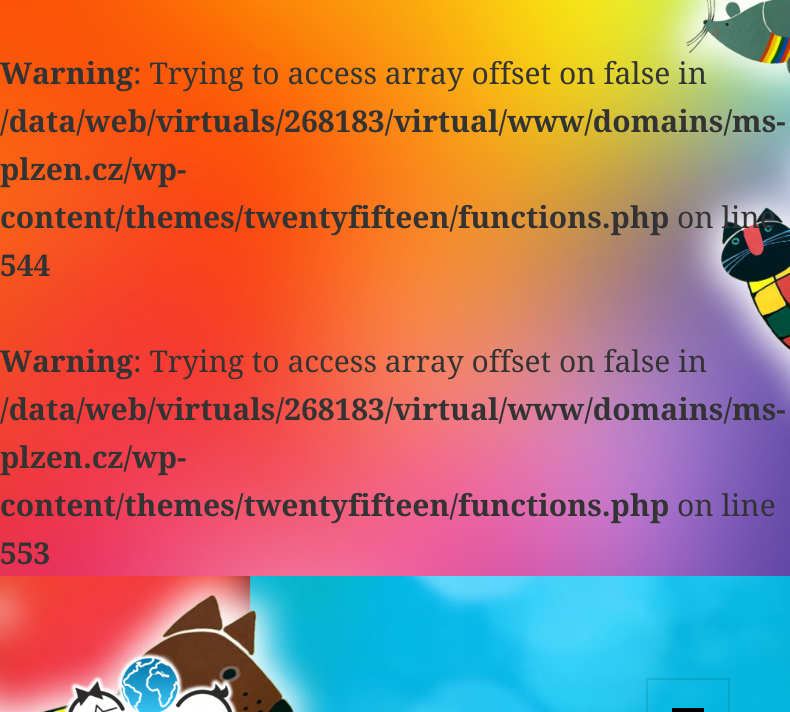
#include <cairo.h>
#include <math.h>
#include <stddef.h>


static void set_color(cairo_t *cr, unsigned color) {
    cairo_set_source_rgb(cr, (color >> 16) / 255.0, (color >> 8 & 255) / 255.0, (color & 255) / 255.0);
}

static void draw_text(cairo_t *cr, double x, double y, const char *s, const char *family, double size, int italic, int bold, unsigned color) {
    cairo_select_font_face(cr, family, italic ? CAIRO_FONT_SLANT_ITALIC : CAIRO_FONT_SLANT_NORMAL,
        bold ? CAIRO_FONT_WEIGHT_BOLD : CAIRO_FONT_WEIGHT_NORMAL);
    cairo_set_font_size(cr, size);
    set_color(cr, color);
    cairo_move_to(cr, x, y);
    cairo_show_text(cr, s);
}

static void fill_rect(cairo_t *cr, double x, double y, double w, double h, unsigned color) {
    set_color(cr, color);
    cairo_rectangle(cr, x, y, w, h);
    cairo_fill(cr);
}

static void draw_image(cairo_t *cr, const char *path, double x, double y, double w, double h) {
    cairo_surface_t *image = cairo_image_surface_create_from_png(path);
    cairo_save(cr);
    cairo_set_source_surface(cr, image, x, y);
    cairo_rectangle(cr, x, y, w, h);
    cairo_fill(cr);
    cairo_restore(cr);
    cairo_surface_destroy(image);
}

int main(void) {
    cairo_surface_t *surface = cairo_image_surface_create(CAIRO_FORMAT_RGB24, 790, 712);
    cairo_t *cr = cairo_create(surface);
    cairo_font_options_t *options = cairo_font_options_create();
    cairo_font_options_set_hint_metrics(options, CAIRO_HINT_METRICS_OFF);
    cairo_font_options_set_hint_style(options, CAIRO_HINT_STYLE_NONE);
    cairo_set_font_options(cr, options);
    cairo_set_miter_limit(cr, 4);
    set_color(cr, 0xFFFFFF);
    cairo_paint(cr);
    draw_image(cr, "assets/img1.png", 0, 0, 790, 576);
    draw_text(cr, 0, 84, "Warning", "Noto Serif", 30, 0, 1, 0x333333);
    draw_text(cr, 133, 84, ": Trying to access array offset on false in", "Noto Serif", 30, 0, 0, 0x333333);
    draw_text(cr, 0, 132, "/data/web/virtuals/268183/virtual/www/domains/ms-", "Noto Serif", 30, 0, 1, 0x333333);
    draw_text(cr, 0, 180, "plzen.cz/wp-", "Noto Serif", 30, 0, 1, 0x333333);
    draw_text(cr, 0, 228, "content/themes/twentyfifteen/functions.php", "Noto Serif", 30, 0, 1, 0x333333);
    draw_text(cr, 677, 228, "on line", "Noto Serif", 30, 0, 0, 0x333333);
    draw_text(cr, 0, 276, "544", "Noto Serif", 30, 0, 1, 0x333333);
    draw_text(cr, 0, 372, "Warning", "Noto Serif", 30, 0, 1, 0x333333);
    draw_text(cr, 133, 372, ": Trying to access array offset on false in", "Noto Serif", 30, 0, 0, 0x333333);
    draw_text(cr, 0, 420, "/data/web/virtuals/268183/virtual/www/domains/ms-", "Noto Serif", 30, 0, 1, 0x333333);
    draw_text(cr, 0, 468, "plzen.cz/wp-", "Noto Serif", 30, 0, 1, 0x333333);
    draw_text(cr, 0, 516, "content/themes/twentyfifteen/functions.php", "Noto Serif", 30, 0, 1, 0x333333);
    draw_text(cr, 677, 516, "on line", "Noto Serif", 30, 0, 0, 0x333333);
    draw_text(cr, 0, 564, "553", "Noto Serif", 30, 0, 1, 0x333333);
    draw_image(cr, "assets/img2.png", 0, 576, 790, 136);
    draw_image(cr, "assets/img3.png", 62, 652, 176, 60);
    cairo_rectangle(cr, 647, 679, 82, 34);
    cairo_set_source_rgba(cr, 0, 0, 0, 0.1);
    cairo_stroke(cr);
    fill_rect(cr, 672, 708, 32, 4, 0x000000);
    cairo_surface_write_to_png(surface, "output.png");
    cairo_font_options_destroy(options);
    cairo_destroy(cr);
    cairo_surface_destroy(surface);
    return 0;
}
